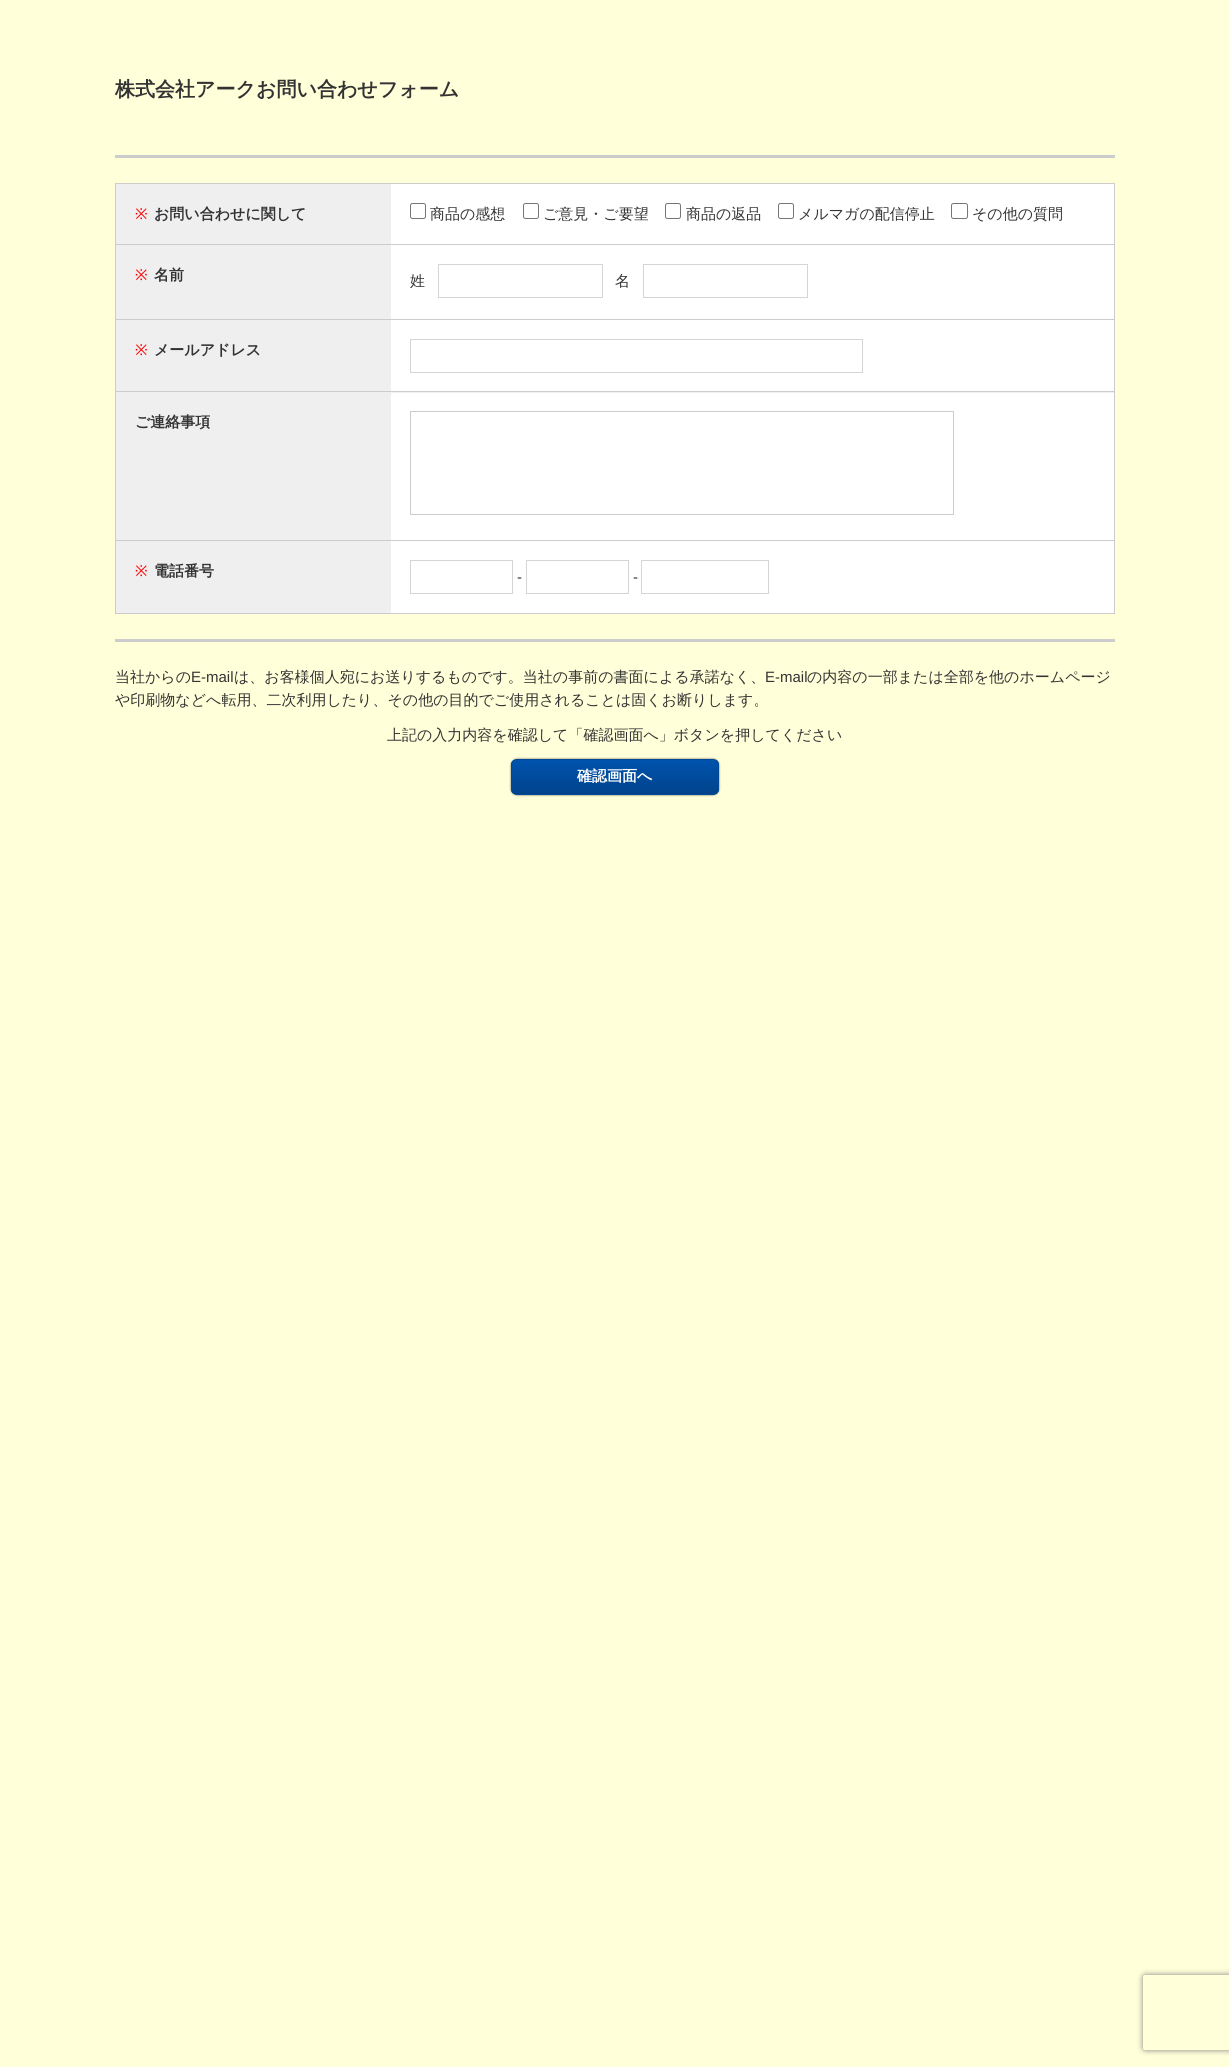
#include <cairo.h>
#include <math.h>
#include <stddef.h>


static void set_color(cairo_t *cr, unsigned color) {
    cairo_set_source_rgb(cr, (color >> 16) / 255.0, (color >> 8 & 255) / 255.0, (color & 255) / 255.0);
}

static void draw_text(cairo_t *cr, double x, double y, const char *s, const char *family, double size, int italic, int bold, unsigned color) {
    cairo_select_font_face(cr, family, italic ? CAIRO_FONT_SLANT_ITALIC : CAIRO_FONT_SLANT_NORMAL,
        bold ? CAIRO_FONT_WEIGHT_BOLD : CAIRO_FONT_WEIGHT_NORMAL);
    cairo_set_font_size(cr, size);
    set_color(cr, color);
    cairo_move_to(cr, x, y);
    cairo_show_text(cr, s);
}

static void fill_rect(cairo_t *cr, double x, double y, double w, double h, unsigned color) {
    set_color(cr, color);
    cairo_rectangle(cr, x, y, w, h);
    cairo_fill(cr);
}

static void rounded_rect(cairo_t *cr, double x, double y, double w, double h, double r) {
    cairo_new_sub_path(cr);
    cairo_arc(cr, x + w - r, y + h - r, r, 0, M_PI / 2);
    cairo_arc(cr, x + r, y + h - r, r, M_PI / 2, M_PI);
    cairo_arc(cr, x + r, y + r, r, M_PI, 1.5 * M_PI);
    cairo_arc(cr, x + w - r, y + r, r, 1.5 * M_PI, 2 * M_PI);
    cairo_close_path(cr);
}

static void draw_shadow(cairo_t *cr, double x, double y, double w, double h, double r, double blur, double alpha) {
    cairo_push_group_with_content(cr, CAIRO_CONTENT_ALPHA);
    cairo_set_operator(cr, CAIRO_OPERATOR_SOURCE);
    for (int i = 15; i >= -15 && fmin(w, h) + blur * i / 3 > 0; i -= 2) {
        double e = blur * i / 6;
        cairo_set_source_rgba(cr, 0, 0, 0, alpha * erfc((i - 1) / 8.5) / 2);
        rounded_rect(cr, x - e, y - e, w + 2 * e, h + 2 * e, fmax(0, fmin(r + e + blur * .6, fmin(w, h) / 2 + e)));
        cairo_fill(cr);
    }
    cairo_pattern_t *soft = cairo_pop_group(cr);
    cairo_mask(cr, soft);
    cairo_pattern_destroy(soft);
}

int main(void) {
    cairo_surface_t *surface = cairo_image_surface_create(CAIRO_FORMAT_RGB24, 1229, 2067);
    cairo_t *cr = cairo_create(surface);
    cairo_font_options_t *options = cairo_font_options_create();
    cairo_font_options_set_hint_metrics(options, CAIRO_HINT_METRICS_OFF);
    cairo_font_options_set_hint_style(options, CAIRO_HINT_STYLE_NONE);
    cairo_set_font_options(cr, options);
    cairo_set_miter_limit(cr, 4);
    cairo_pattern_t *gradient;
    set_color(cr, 0xFFFFD9);
    cairo_paint(cr);
    draw_text(cr, 115, 96, "株式会社アークお問い合わせフォーム", "WenQuanYi Zen Hei", 20, 0, 1, 0x333333);
    fill_rect(cr, 115, 155, 1000, 3, 0xCCCCCC);
    fill_rect(cr, 116, 184, 275, 60, 0xEFEFEF);
    fill_rect(cr, 115, 183, 1000, 1, 0xCCCCCC);
    fill_rect(cr, 1114, 183, 1, 61, 0xCCCCCC);
    fill_rect(cr, 115, 183, 1, 61, 0xCCCCCC);
    draw_text(cr, 135, 219, "※", "Noto Sans", 15, 0, 0, 0xFF0000);
    draw_text(cr, 154, 219, "お問い合わせに関して", "WenQuanYi Zen Hei", 15, 0, 1, 0x333333);
    fill_rect(cr, 391, 184, 723, 60, 0xFFFFFF);
    rounded_rect(cr, 410.5, 203.5, 15, 15, 2);
    set_color(cr, 0x767676);
    cairo_set_line_width(cr, 1);
    cairo_stroke(cr);
    draw_text(cr, 430, 219, "商品の感想", "WenQuanYi Zen Hei Medium", 15, 0, 0, 0x333333);
    rounded_rect(cr, 523.5, 203.5, 15, 15, 2);
    set_color(cr, 0x767676);
    cairo_stroke(cr);
    draw_text(cr, 543, 219, "ご意見・ご要望", "WenQuanYi Zen Hei Medium", 15, 0, 0, 0x333333);
    rounded_rect(cr, 665.5, 203.5, 15, 15, 2);
    set_color(cr, 0x767676);
    cairo_stroke(cr);
    draw_text(cr, 686, 219, "商品の返品", "WenQuanYi Zen Hei Medium", 15, 0, 0, 0x333333);
    rounded_rect(cr, 778.5, 203.5, 15, 15, 2);
    set_color(cr, 0x767676);
    cairo_stroke(cr);
    draw_text(cr, 798, 219, "メルマガの配信停止", "WenQuanYi Zen Hei Medium", 15, 0, 0, 0x333333);
    rounded_rect(cr, 951.5, 203.5, 16, 15, 2);
    set_color(cr, 0x767676);
    cairo_stroke(cr);
    draw_text(cr, 972, 219, "その他の質問", "WenQuanYi Zen Hei Medium", 15, 0, 0, 0x333333);
    fill_rect(cr, 116, 245, 275, 74, 0xEFEFEF);
    fill_rect(cr, 115, 244, 1000, 1, 0xCCCCCC);
    fill_rect(cr, 1114, 244, 1, 75, 0xCCCCCC);
    fill_rect(cr, 115, 244, 1, 75, 0xCCCCCC);
    draw_text(cr, 135, 280, "※", "Noto Sans", 15, 0, 0, 0xFF0000);
    draw_text(cr, 154, 280, "名前", "WenQuanYi Zen Hei", 15, 0, 1, 0x333333);
    fill_rect(cr, 391, 245, 723, 74, 0xFFFFFF);
    draw_text(cr, 410, 286, "姓", "WenQuanYi Zen Hei Medium", 15, 0, 0, 0x333333);
    cairo_rectangle(cr, 438.5, 264.5, 164, 33);
    set_color(cr, 0xD5D5D5);
    cairo_stroke(cr);
    draw_text(cr, 615, 286, "名", "WenQuanYi Zen Hei Medium", 15, 0, 0, 0x333333);
    cairo_rectangle(cr, 643.5, 264.5, 164, 33);
    set_color(cr, 0xD5D5D5);
    cairo_stroke(cr);
    fill_rect(cr, 116, 320, 275, 71, 0xEFEFEF);
    fill_rect(cr, 115, 319, 1000, 1, 0xCCCCCC);
    fill_rect(cr, 1114, 319, 1, 72, 0xCCCCCC);
    fill_rect(cr, 115, 319, 1, 72, 0xCCCCCC);
    draw_text(cr, 135, 355, "※", "Noto Sans", 15, 0, 0, 0xFF0000);
    draw_text(cr, 154, 355, "メールアドレス", "WenQuanYi Zen Hei", 15, 0, 1, 0x333333);
    fill_rect(cr, 391, 320, 723, 71, 0xFFFFFF);
    cairo_rectangle(cr, 410.5, 339.5, 452, 33);
    set_color(cr, 0xD5D5D5);
    cairo_stroke(cr);
    fill_rect(cr, 116, 392, 998, 148, 0xEFEFEF);
    fill_rect(cr, 115, 391, 1000, 1, 0xCCCCCC);
    fill_rect(cr, 1114, 391, 1, 149, 0xCCCCCC);
    fill_rect(cr, 115, 391, 1, 149, 0xCCCCCC);
    draw_text(cr, 135, 427, "ご連絡事項", "WenQuanYi Zen Hei", 15, 0, 1, 0x333333);
    fill_rect(cr, 391, 393, 723, 147, 0xFFFFFF);
    cairo_rectangle(cr, 410.5, 411.5, 543, 103);
    set_color(cr, 0xCCCCCC);
    cairo_stroke(cr);
    fill_rect(cr, 116, 541, 275, 72, 0xEFEFEF);
    cairo_rectangle(cr, 115.5, 540.5, 999, 73);
    set_color(cr, 0xCCCCCC);
    cairo_stroke(cr);
    draw_text(cr, 135, 576, "※", "Noto Sans", 15, 0, 0, 0xFF0000);
    draw_text(cr, 154, 576, "電話番号", "WenQuanYi Zen Hei", 15, 0, 1, 0x333333);
    fill_rect(cr, 391, 541, 723, 72, 0xFFFFFF);
    cairo_rectangle(cr, 410.5, 560.5, 102, 33);
    set_color(cr, 0xD5D5D5);
    cairo_stroke(cr);
    draw_text(cr, 517, 582, "-", "Liberation Sans", 15, 0, 0, 0x333333);
    cairo_rectangle(cr, 526.5, 560.5, 102, 33);
    set_color(cr, 0xD5D5D5);
    cairo_stroke(cr);
    draw_text(cr, 633, 582, "-", "Liberation Sans", 15, 0, 0, 0x333333);
    cairo_rectangle(cr, 641.5, 560.5, 127, 33);
    set_color(cr, 0xD5D5D5);
    cairo_stroke(cr);
    fill_rect(cr, 115, 639, 1000, 3, 0xCCCCCC);
    draw_text(cr, 115, 682, "当社からの", "WenQuanYi Zen Hei Medium", 15, 0, 0, 0x333333);
    draw_text(cr, 191, 682, "E-mail", "Liberation Sans", 15, 0, 0, 0x333333);
    draw_text(cr, 234, 682, "は、お客様個人宛にお送りするものです。当社の事前の書面による承諾なく、", "WenQuanYi Zen Hei Medium", 15, 0, 0, 0x333333);
    draw_text(cr, 765, 682, "E-mail", "Liberation Sans", 15, 0, 0, 0x333333);
    draw_text(cr, 807, 682, "の内容の一部または全部を他のホームページ", "WenQuanYi Zen Hei Medium", 15, 0, 0, 0x333333);
    draw_text(cr, 115, 705, "や印刷物などへ転用、二次利用したり、その他の目的でご使用されることは固くお断りします。", "WenQuanYi Zen Hei Medium", 15, 0, 0, 0x333333);
    draw_text(cr, 387, 740, "上記の入力内容を確認して「確認画面へ」ボタンを押してください", "WenQuanYi Zen Hei Medium", 15, 0, 0, 0x333333);
    set_color(cr, 0x666666);
    draw_shadow(cr, 511, 759, 208, 36, 6, 1, 1);
    cairo_save(cr);
    rounded_rect(cr, 511, 759, 208, 36, 6);
    cairo_clip(cr);
    gradient = cairo_pattern_create_linear(615, 760, 615, 794);
    cairo_pattern_add_color_stop_rgba(gradient, 0, 0, 0.325, 0.678, 1);
    cairo_pattern_add_color_stop_rgba(gradient, 1, 0, 0.263, 0.549, 1);
    cairo_set_source(cr, gradient);
    cairo_pattern_destroy(gradient);
    cairo_rectangle(cr, 511, 760, 208, 34);
    cairo_fill(cr);
    cairo_restore(cr);
    rounded_rect(cr, 511.5, 759.5, 207, 35, 5.5);
    set_color(cr, 0x004896);
    cairo_stroke(cr);
    draw_text(cr, 577, 781, "確認画面へ", "WenQuanYi Zen Hei", 15, 0, 1, 0xFFFFFF);
    cairo_save(cr);
    cairo_set_fill_rule(cr, CAIRO_FILL_RULE_EVEN_ODD);
    cairo_new_path(cr);
    cairo_move_to(cr, 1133, 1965);
    cairo_line_to(cr, 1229, 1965);
    cairo_line_to(cr, 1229, 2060);
    cairo_line_to(cr, 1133, 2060);
    cairo_close_path(cr);
    cairo_move_to(cr, 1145.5, 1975);
    cairo_line_to(cr, 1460.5, 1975);
    cairo_curve_to(cr, 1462, 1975, 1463, 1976, 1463, 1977.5);
    cairo_line_to(cr, 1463, 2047.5);
    cairo_curve_to(cr, 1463, 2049, 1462, 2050, 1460.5, 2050);
    cairo_line_to(cr, 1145.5, 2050);
    cairo_curve_to(cr, 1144, 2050, 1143, 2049, 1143, 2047.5);
    cairo_line_to(cr, 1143, 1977.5);
    cairo_curve_to(cr, 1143, 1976, 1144, 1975, 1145.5, 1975);
    cairo_close_path(cr);
    cairo_clip(cr);
    set_color(cr, 0x808080);
    draw_shadow(cr, 1143, 1975, 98, 75, 2.5, 3, 1);
    cairo_restore(cr);
    cairo_surface_write_to_png(surface, "output.png");
    cairo_font_options_destroy(options);
    cairo_destroy(cr);
    cairo_surface_destroy(surface);
    return 0;
}
